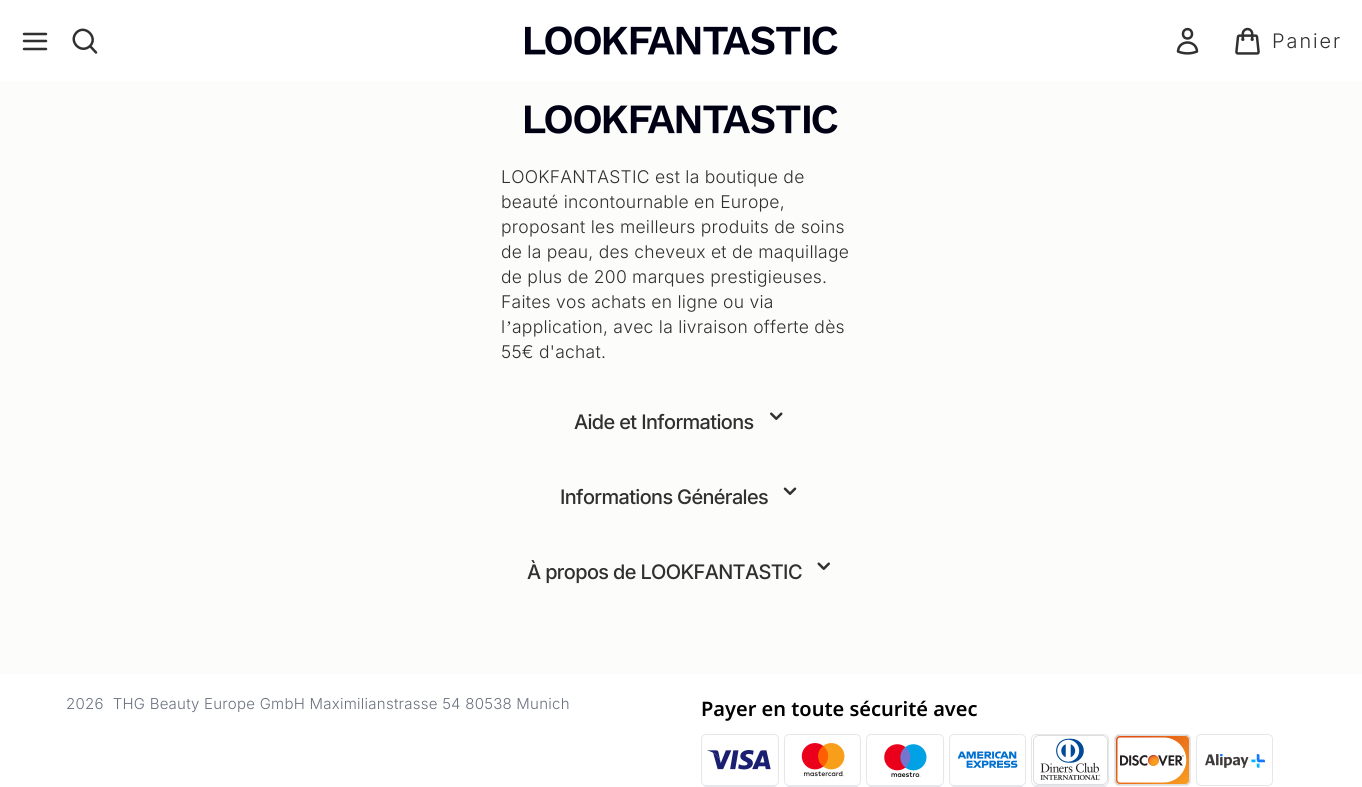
#include <cairo.h>
#include <math.h>
#include <stddef.h>


static void set_color(cairo_t *cr, unsigned color) {
    cairo_set_source_rgb(cr, (color >> 16) / 255.0, (color >> 8 & 255) / 255.0, (color & 255) / 255.0);
}

static void draw_text(cairo_t *cr, double x, double y, const char *s, const char *family, double size, int italic, int bold, unsigned color) {
    cairo_select_font_face(cr, family, italic ? CAIRO_FONT_SLANT_ITALIC : CAIRO_FONT_SLANT_NORMAL,
        bold ? CAIRO_FONT_WEIGHT_BOLD : CAIRO_FONT_WEIGHT_NORMAL);
    cairo_set_font_size(cr, size);
    set_color(cr, color);
    cairo_move_to(cr, x, y);
    cairo_show_text(cr, s);
}

static void draw_spaced(cairo_t *cr, double x, double y, const char *s, double letter, double word) {
    cairo_move_to(cr, x, y);
    while (*s) {
        char ch[5] = {0};
        int n = 0;
        do ch[n++] = *s++; while ((*s & 0xC0) == 0x80);
        cairo_show_text(cr, ch);
        cairo_rel_move_to(cr, letter + word * (*ch == ' '), 0);
    }
}

static void fill_rect(cairo_t *cr, double x, double y, double w, double h, unsigned color) {
    set_color(cr, color);
    cairo_rectangle(cr, x, y, w, h);
    cairo_fill(cr);
}

static void rounded_rect(cairo_t *cr, double x, double y, double w, double h, double r) {
    cairo_new_sub_path(cr);
    cairo_arc(cr, x + w - r, y + h - r, r, 0, M_PI / 2);
    cairo_arc(cr, x + r, y + h - r, r, M_PI / 2, M_PI);
    cairo_arc(cr, x + r, y + r, r, M_PI, 1.5 * M_PI);
    cairo_arc(cr, x + w - r, y + r, r, 1.5 * M_PI, 2 * M_PI);
    cairo_close_path(cr);
}

static void draw_image(cairo_t *cr, const char *path, double x, double y, double w, double h) {
    cairo_surface_t *image = cairo_image_surface_create_from_png(path);
    cairo_save(cr);
    cairo_set_source_surface(cr, image, x, y);
    cairo_rectangle(cr, x, y, w, h);
    cairo_fill(cr);
    cairo_restore(cr);
    cairo_surface_destroy(image);
}

int main(void) {
    cairo_surface_t *surface = cairo_image_surface_create(CAIRO_FORMAT_RGB24, 1362, 787);
    cairo_t *cr = cairo_create(surface);
    cairo_font_options_t *options = cairo_font_options_create();
    cairo_font_options_set_hint_metrics(options, CAIRO_HINT_METRICS_OFF);
    cairo_font_options_set_hint_style(options, CAIRO_HINT_STYLE_NONE);
    cairo_set_font_options(cr, options);
    cairo_set_miter_limit(cr, 4);
    set_color(cr, 0xFFFFFF);
    cairo_paint(cr);
    cairo_new_path(cr);
    cairo_move_to(cr, 24, 41);
    cairo_line_to(cr, 46, 41);
    cairo_move_to(cr, 24, 34);
    cairo_line_to(cr, 46, 34);
    cairo_move_to(cr, 24, 49);
    cairo_line_to(cr, 46, 49);
    set_color(cr, 0x303030);
    cairo_set_line_width(cr, 2.5);
    cairo_set_line_cap(cr, CAIRO_LINE_CAP_ROUND);
    cairo_set_line_join(cr, CAIRO_LINE_JOIN_ROUND);
    cairo_stroke(cr);
    cairo_new_path(cr);
    cairo_move_to(cr, 96, 52.5);
    cairo_line_to(cr, 90, 46);
    cairo_move_to(cr, 90, 46);
    cairo_curve_to(cr, 98.5, 37.5, 85, 24, 76.5, 32.5);
    cairo_curve_to(cr, 68, 41.5, 81, 54.5, 90, 46);
    cairo_close_path(cr);
    cairo_stroke(cr);
    draw_image(cr, "assets/img1.png", 525, 26, 313, 29);
    cairo_new_path(cr);
    cairo_move_to(cr, 1192, 34);
    cairo_curve_to(cr, 1192, 40, 1183, 40, 1183, 34);
    cairo_curve_to(cr, 1183, 27.5, 1192, 27.5, 1192, 34);
    cairo_close_path(cr);
    cairo_move_to(cr, 1178, 51.5);
    cairo_curve_to(cr, 1178.5, 39.5, 1196.5, 39.5, 1197, 51.5);
    cairo_curve_to(cr, 1191, 54, 1184, 54, 1178, 51.5);
    cairo_close_path(cr);
    cairo_stroke(cr);
    draw_image(cr, "assets/img2.png", 1235, 27, 25, 28);
    cairo_select_font_face(cr, "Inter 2 Light", CAIRO_FONT_SLANT_NORMAL, CAIRO_FONT_WEIGHT_NORMAL);
    cairo_set_font_size(cr, 20);
    draw_spaced(cr, 1272, 48, "Panier", 2, 0);
    fill_rect(cr, 0, 81, 1362, 593, 0xFCFCFA);
    draw_image(cr, "assets/img3.png", 525, 105, 313, 29);
    cairo_select_font_face(cr, "Inter Light", CAIRO_FONT_SLANT_NORMAL, CAIRO_FONT_WEIGHT_NORMAL);
    cairo_set_font_size(cr, 17.5);
    set_color(cr, 0x303030);
    draw_spaced(cr, 501, 183, "LOOKFANTASTIC est la boutique de", 0.25, 0);
    draw_spaced(cr, 501, 208, "beauté incontournable en Europe,", 0.25, 0);
    draw_spaced(cr, 501, 233, "proposant les meilleurs produits de soins", 0.25, 0);
    draw_spaced(cr, 501, 258, "de la peau, des cheveux et de maquillage", 0.25, 0);
    draw_spaced(cr, 501, 283, "de plus de 200 marques prestigieuses.", 0.25, 0);
    draw_spaced(cr, 501, 308, "Faites vos achats en ligne ou via", 0.25, 0);
    draw_spaced(cr, 501, 333, "l", 0.25, 0);
    cairo_select_font_face(cr, "Liberation Serif", CAIRO_FONT_SLANT_NORMAL, CAIRO_FONT_WEIGHT_NORMAL);
    draw_spaced(cr, 506, 333, "’", 0.25, 0);
    cairo_select_font_face(cr, "Inter Light", CAIRO_FONT_SLANT_NORMAL, CAIRO_FONT_WEIGHT_NORMAL);
    draw_spaced(cr, 512, 333, "application, avec la livraison offerte dès", 0.25, 0);
    draw_spaced(cr, 501, 358, "55€ d'achat.", 0.25, 0);
    cairo_select_font_face(cr, "Inter Medium", CAIRO_FONT_SLANT_NORMAL, CAIRO_FONT_WEIGHT_NORMAL);
    cairo_set_font_size(cr, 20);
    draw_spaced(cr, 574, 429, "Aide et Informations", -0.6, 0);
    draw_image(cr, "assets/img4.png", 770, 412, 13, 8);
    draw_spaced(cr, 560, 504, "Informations Générales", -0.6, 0);
    draw_image(cr, "assets/img5.png", 783, 487, 14, 8);
    draw_spaced(cr, 527, 579, "À propos de LOOKFANTASTIC", -0.6, 0);
    draw_image(cr, "assets/img6.png", 817, 562, 13, 8);
    cairo_select_font_face(cr, "Inter Light", CAIRO_FONT_SLANT_NORMAL, CAIRO_FONT_WEIGHT_NORMAL);
    cairo_set_font_size(cr, 15);
    set_color(cr, 0x6B7280);
    draw_spaced(cr, 66, 709, "2026  THG Beauty Europe GmbH Maximilianstrasse 54 80538 Munich", 0.25, 0);
    draw_text(cr, 701, 716, "Payer en toute sécurité avec", "Noto Sans SemiBold", 20, 0, 0, 0x000000);
    rounded_rect(cr, 701.5, 734.5, 77, 51, 4.5);
    set_color(cr, 0xE5E7EB);
    cairo_set_line_width(cr, 1);
    cairo_set_line_cap(cr, CAIRO_LINE_CAP_BUTT);
    cairo_set_line_join(cr, CAIRO_LINE_JOIN_MITER);
    cairo_stroke(cr);
    draw_image(cr, "assets/img7.png", 707, 750, 64, 20);
    rounded_rect(cr, 784.5, 734.5, 76, 51, 4.5);
    cairo_stroke(cr);
    draw_image(cr, "assets/img8.png", 801, 743, 44, 34);
    rounded_rect(cr, 866.5, 734.5, 77, 51, 4.5);
    cairo_stroke(cr);
    draw_image(cr, "assets/img9.png", 884, 744, 43, 33);
    rounded_rect(cr, 949.5, 734.5, 76, 51, 4.5);
    cairo_stroke(cr);
    draw_image(cr, "assets/img10.png", 958, 751, 60, 17);
    rounded_rect(cr, 1031.5, 734.5, 77, 51, 4.5);
    cairo_stroke(cr);
    draw_image(cr, "assets/img11.png", 1033, 735, 75, 50);
    rounded_rect(cr, 1114.5, 734.5, 76, 51, 4.5);
    cairo_stroke(cr);
    draw_image(cr, "assets/img12.png", 1115, 735, 75, 50);
    rounded_rect(cr, 1196.5, 734.5, 76, 51, 4.5);
    cairo_stroke(cr);
    draw_image(cr, "assets/img13.png", 1205, 754, 60, 14);
    rounded_rect(cr, 701.5, 786.5, 77, 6, 4.5);
    cairo_stroke(cr);
    rounded_rect(cr, 784.5, 786.5, 76, 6, 4.5);
    cairo_stroke(cr);
    rounded_rect(cr, 866.5, 786.5, 77, 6, 4.5);
    cairo_stroke(cr);
    rounded_rect(cr, 949.5, 786.5, 76, 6, 4.5);
    cairo_stroke(cr);
    rounded_rect(cr, 1031.5, 786.5, 77, 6, 4.5);
    cairo_stroke(cr);
    cairo_surface_write_to_png(surface, "output.png");
    cairo_font_options_destroy(options);
    cairo_destroy(cr);
    cairo_surface_destroy(surface);
    return 0;
}
